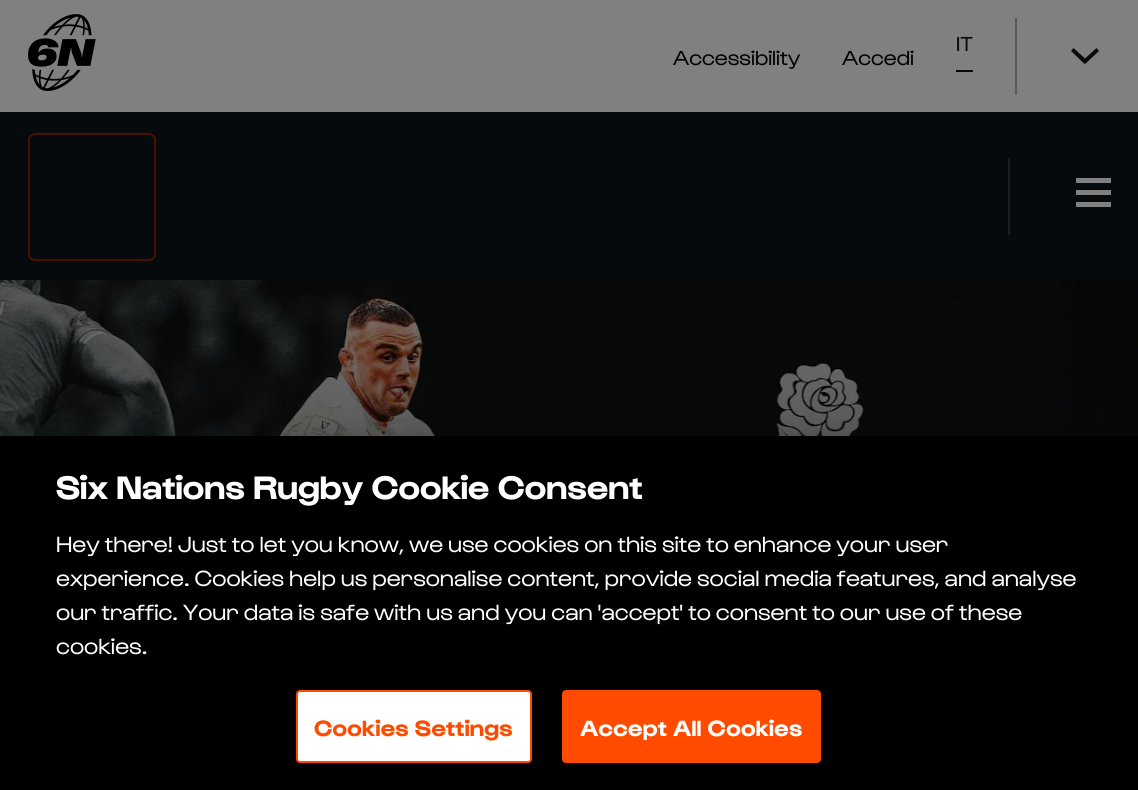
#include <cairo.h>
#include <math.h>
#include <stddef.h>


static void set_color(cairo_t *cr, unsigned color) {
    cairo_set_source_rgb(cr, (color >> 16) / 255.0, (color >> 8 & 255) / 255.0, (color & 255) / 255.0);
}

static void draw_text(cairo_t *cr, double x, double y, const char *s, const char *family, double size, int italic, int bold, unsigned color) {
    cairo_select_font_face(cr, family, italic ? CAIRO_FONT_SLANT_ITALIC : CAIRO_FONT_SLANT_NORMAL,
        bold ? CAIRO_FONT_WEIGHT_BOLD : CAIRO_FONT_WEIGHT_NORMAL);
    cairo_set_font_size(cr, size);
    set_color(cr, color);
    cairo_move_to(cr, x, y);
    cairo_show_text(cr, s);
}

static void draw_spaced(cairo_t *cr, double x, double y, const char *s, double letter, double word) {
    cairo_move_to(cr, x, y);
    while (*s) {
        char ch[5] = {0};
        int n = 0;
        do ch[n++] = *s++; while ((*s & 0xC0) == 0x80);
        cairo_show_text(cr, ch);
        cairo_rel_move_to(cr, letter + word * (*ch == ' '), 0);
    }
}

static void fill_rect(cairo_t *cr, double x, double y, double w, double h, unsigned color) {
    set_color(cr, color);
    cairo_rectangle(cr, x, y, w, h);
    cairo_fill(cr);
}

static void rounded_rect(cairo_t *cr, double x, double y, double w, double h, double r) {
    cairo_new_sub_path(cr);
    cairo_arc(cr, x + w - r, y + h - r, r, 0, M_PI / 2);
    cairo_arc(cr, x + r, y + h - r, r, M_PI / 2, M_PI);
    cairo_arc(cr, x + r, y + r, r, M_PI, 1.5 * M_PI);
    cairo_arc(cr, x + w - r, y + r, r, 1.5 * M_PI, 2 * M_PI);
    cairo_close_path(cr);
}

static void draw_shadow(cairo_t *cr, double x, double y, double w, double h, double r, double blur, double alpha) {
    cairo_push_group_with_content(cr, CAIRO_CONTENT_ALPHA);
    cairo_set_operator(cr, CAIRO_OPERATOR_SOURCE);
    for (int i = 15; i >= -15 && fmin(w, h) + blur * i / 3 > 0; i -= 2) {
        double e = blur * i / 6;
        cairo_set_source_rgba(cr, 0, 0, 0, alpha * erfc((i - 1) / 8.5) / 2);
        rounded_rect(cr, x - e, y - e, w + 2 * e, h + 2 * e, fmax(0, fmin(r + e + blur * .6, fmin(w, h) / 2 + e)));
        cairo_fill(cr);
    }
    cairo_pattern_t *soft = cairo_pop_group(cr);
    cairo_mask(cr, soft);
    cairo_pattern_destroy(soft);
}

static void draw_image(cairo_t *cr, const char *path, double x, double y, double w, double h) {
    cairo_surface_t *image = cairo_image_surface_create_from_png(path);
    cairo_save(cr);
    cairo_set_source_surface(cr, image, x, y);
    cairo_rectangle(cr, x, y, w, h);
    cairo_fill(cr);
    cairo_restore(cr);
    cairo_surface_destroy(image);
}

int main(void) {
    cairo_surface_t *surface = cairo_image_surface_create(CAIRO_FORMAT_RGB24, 1138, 790);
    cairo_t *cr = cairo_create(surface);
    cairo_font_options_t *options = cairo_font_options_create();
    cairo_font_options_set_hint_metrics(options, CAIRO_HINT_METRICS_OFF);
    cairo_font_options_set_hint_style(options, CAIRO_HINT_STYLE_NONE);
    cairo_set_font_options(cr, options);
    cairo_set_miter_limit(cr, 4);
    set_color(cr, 0x808080);
    cairo_paint(cr);
    draw_image(cr, "assets/img1.png", 28, 14, 68, 77);
    fill_rect(cr, 956, 70, 17, 2, 0x070A0C);
    draw_text(cr, 956, 51, "IT", "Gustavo", 21, 0, 0, 0x070A0C);
    fill_rect(cr, 1015, 18, 2, 77, 0x595959);
    draw_text(cr, 673, 65, "Accessibility", "Gustavo", 21, 0, 0, 0x000000);
    draw_text(cr, 842, 65, "Accedi", "Gustavo", 21, 0, 0, 0x000000);
    set_color(cr, 0x070A0C);
    cairo_new_path(cr);
    cairo_move_to(cr, 1085, 64);
    cairo_line_to(cr, 1099, 51);
    cairo_line_to(cr, 1096.5, 48);
    cairo_line_to(cr, 1085, 58.5);
    cairo_line_to(cr, 1073.5, 48);
    cairo_line_to(cr, 1071, 51);
    cairo_line_to(cr, 1083.5, 63);
    cairo_close_path(cr);
    cairo_fill(cr);
    fill_rect(cr, 0, 112, 1138, 168, 0x070A0C);
    rounded_rect(cr, 29, 134, 126, 126, 6);
    set_color(cr, 0x4A1000);
    cairo_stroke(cr);
    fill_rect(cr, 1008, 158, 2, 77, 0x1C1E20);
    fill_rect(cr, 1076, 178, 35, 5, 0x808080);
    fill_rect(cr, 1076, 190, 35, 5, 0x808080);
    fill_rect(cr, 1076, 202, 35, 5, 0x808080);
    draw_image(cr, "assets/img2.png", 0, 280, 1138, 156);
    set_color(cr, 0x000000);
    draw_shadow(cr, 0, 436, 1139, 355, 0, 16, 0.2);
    fill_rect(cr, 0, 436, 1138, 354, 0x000000);
    draw_text(cr, 56, 499, "Six Nations Rugby Cookie Consent", "Gustavo", 33.6, 0, 1, 0xFFFFFF);
    draw_text(cr, 56, 552, "Hey there! Just to let you know, we use cookies on this site to enhance your user", "Gustavo", 22.75, 0, 0, 0xFFFFFF);
    draw_text(cr, 56, 586, "experience. Cookies help us personalise content, provide social media features, and analyse", "Gustavo", 22.75, 0, 0, 0xFFFFFF);
    draw_text(cr, 56, 620, "our traffic. Your data is safe with us and you can 'accept' to consent to our use of these", "Gustavo", 22.75, 0, 0, 0xFFFFFF);
    draw_text(cr, 56, 654, "cookies.", "Gustavo", 22.75, 0, 0, 0xFFFFFF);
    rounded_rect(cr, 297, 691, 234, 71, 3);
    cairo_fill_preserve(cr);
    set_color(cr, 0xFF4B00);
    cairo_stroke(cr);
    cairo_select_font_face(cr, "Gustavo", CAIRO_FONT_SLANT_NORMAL, CAIRO_FONT_WEIGHT_BOLD);
    draw_spaced(cr, 314, 736, "Cookies Settings", 0.25, 0);
    rounded_rect(cr, 563, 691, 257, 71, 3);
    cairo_fill_preserve(cr);
    cairo_stroke(cr);
    set_color(cr, 0xFFFFFF);
    draw_spaced(cr, 580, 736, "Accept All Cookies", 0.25, 0);
    cairo_surface_write_to_png(surface, "output.png");
    cairo_font_options_destroy(options);
    cairo_destroy(cr);
    cairo_surface_destroy(surface);
    return 0;
}
